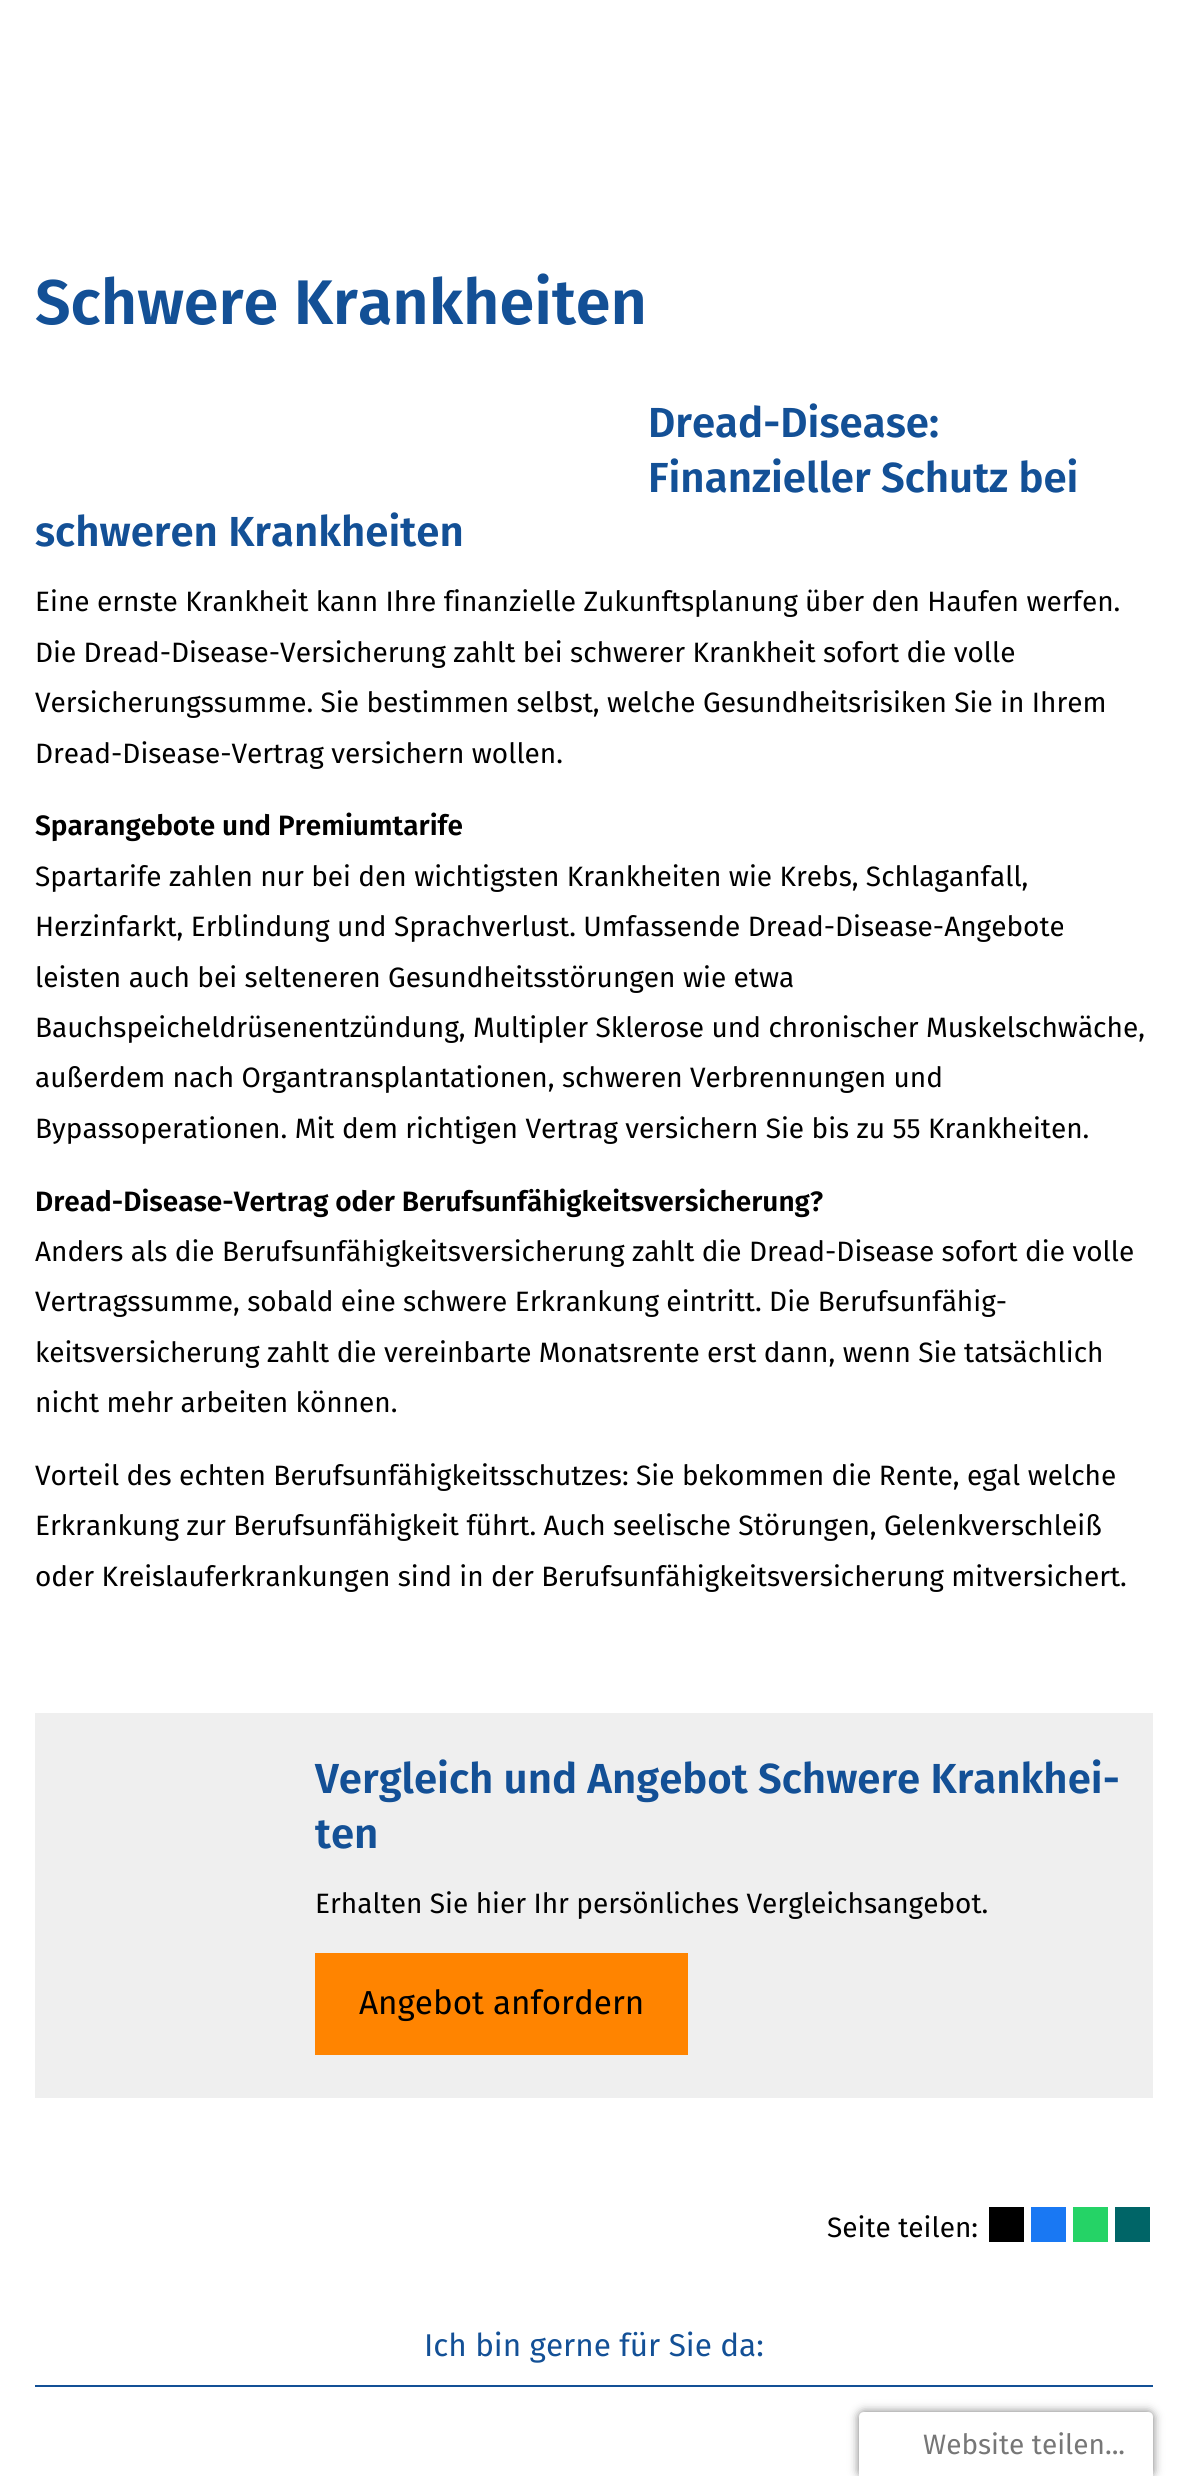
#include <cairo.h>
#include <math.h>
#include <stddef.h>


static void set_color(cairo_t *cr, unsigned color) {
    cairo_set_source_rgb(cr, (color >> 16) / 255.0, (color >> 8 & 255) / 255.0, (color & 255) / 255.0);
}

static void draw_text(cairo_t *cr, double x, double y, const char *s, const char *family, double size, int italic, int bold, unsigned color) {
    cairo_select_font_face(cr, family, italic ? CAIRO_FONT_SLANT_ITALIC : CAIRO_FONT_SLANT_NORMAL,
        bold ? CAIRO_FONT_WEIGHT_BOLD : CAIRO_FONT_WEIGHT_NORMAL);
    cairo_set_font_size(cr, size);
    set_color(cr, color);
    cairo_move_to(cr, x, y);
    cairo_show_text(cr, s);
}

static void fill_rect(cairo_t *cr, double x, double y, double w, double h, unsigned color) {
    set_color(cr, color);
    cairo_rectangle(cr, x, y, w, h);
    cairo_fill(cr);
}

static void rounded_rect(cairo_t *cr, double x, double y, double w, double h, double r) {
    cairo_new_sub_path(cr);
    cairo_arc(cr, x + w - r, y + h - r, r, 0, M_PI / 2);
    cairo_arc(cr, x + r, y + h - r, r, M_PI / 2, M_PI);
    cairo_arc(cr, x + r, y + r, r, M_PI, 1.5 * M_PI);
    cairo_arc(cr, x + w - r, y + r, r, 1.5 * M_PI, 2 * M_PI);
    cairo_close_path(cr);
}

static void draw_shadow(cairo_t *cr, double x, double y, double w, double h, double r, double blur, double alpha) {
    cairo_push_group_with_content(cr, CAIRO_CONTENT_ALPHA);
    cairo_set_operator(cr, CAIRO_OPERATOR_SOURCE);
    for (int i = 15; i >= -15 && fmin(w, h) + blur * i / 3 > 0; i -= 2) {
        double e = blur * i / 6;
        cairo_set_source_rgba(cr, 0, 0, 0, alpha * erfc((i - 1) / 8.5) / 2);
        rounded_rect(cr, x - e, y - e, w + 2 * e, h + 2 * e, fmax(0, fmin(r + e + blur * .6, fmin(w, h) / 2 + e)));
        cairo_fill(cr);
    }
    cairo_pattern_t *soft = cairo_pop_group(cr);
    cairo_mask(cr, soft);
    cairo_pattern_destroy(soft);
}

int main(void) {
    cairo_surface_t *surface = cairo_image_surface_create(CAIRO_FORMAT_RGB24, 1188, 2476);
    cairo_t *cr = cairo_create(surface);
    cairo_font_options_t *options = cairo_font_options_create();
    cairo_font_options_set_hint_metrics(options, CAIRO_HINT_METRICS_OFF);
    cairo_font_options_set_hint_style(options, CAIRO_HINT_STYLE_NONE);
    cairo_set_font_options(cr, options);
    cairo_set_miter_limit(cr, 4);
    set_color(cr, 0xFFFFFF);
    cairo_paint(cr);
    draw_text(cr, 35, 324, "Schwere Krankheiten", "Fira Sans SemiBold", 63, 0, 0, 0x135096);
    draw_text(cr, 648, 437, "Dread-Disease:", "Fira Sans SemiBold", 42, 0, 0, 0x135096);
    draw_text(cr, 648, 492, "Finanzieller Schutz bei", "Fira Sans SemiBold", 42, 0, 0, 0x135096);
    draw_text(cr, 35, 546, "schweren Krankheiten", "Fira Sans SemiBold", 42, 0, 0, 0x135096);
    draw_text(cr, 35, 611, "Eine ernste Krankheit kann Ihre finanzielle Zukunftsplanung über den Haufen werfen.", "Fira Sans", 28, 0, 0, 0x000000);
    draw_text(cr, 35, 662, "Die Dread-Disease-Versicherung zahlt bei schwerer Krankheit sofort die volle", "Fira Sans", 28, 0, 0, 0x000000);
    draw_text(cr, 35, 712, "Versicherungssumme. Sie bestimmen selbst, welche Gesundheitsrisiken Sie in Ihrem", "Fira Sans", 28, 0, 0, 0x000000);
    draw_text(cr, 35, 763, "Dread-Disease-Vertrag versichern wollen.", "Fira Sans", 28, 0, 0, 0x000000);
    draw_text(cr, 35, 835, "Sparangebote und Premiumtarife", "Fira Sans SemiBold", 28, 0, 0, 0x000000);
    draw_text(cr, 35, 886, "Spartarife zahlen nur bei den wichtigsten Krankheiten wie Krebs, Schlaganfall,", "Fira Sans", 28, 0, 0, 0x000000);
    draw_text(cr, 35, 936, "Herzinfarkt, Erblindung und Sprachverlust. Umfassende Dread-Disease-Angebote", "Fira Sans", 28, 0, 0, 0x000000);
    draw_text(cr, 35, 987, "leisten auch bei selteneren Gesundheitsstörungen wie etwa", "Fira Sans", 28, 0, 0, 0x000000);
    draw_text(cr, 35, 1037, "Bauchspeicheldrüsenentzündung, Multipler Sklerose und chronischer Muskelschwäche,", "Fira Sans", 28, 0, 0, 0x000000);
    draw_text(cr, 35, 1087, "außerdem nach Organtransplantationen, schweren Verbrennungen und", "Fira Sans", 28, 0, 0, 0x000000);
    draw_text(cr, 35, 1138, "Bypassoperationen. Mit dem richtigen Vertrag versichern Sie bis zu 55 Krankheiten.", "Fira Sans", 28, 0, 0, 0x000000);
    draw_text(cr, 35, 1211, "Dread-Disease-Vertrag oder Berufsunfähigkeitsversicherung?", "Fira Sans SemiBold", 28, 0, 0, 0x000000);
    draw_text(cr, 35, 1261, "Anders als die Berufsunfähigkeitsversicherung zahlt die Dread-Disease sofort die volle", "Fira Sans", 28, 0, 0, 0x000000);
    draw_text(cr, 35, 1311, "Vertragssumme, sobald eine schwere Erkrankung eintritt. Die Berufsunfähig-", "Fira Sans", 28, 0, 0, 0x000000);
    draw_text(cr, 35, 1362, "keitsversicherung zahlt die vereinbarte Monatsrente erst dann, wenn Sie tatsächlich", "Fira Sans", 28, 0, 0, 0x000000);
    draw_text(cr, 35, 1412, "nicht mehr arbeiten können.", "Fira Sans", 28, 0, 0, 0x000000);
    draw_text(cr, 35, 1485, "Vorteil des echten Berufsunfähigkeitsschutzes: Sie bekommen die Rente, egal welche", "Fira Sans", 28, 0, 0, 0x000000);
    draw_text(cr, 35, 1535, "Erkrankung zur Berufsunfähigkeit führt. Auch seelische Störungen, Gelenkverschleiß", "Fira Sans", 28, 0, 0, 0x000000);
    draw_text(cr, 35, 1586, "oder Kreislauferkrankungen sind in der Berufsunfähigkeitsversicherung mitversichert.", "Fira Sans", 28, 0, 0, 0x000000);
    fill_rect(cr, 35, 1713, 1118, 385, 0xEFEFEF);
    draw_text(cr, 315, 1793, "Vergleich und Angebot Schwere Krankhei-", "Fira Sans SemiBold", 42, 0, 0, 0x135096);
    draw_text(cr, 315, 1848, "ten", "Fira Sans SemiBold", 42, 0, 0, 0x135096);
    draw_text(cr, 315, 1913, "Erhalten Sie hier Ihr persönliches Vergleichsangebot.", "Fira Sans", 28, 0, 0, 0x000000);
    fill_rect(cr, 315, 1953, 373, 102, 0xFF8400);
    draw_text(cr, 359, 2014, "Angebot anfordern", "Fira Sans", 33.25, 0, 0, 0x000000);
    draw_text(cr, 827, 2237, "Seite teilen:", "Fira Sans", 28, 0, 0, 0x000000);
    fill_rect(cr, 989, 2207, 35, 35, 0x000000);
    fill_rect(cr, 1031, 2207, 35, 35, 0x1978F3);
    fill_rect(cr, 1073, 2207, 35, 35, 0x25D366);
    fill_rect(cr, 1115, 2207, 35, 35, 0x006567);
    fill_rect(cr, 35, 2385, 1118, 2, 0x135096);
    draw_text(cr, 424, 2356, "Ich bin gerne für Sie da:", "Fira Sans", 31.5, 0, 0, 0x135096);
    set_color(cr, 0x777777);
    draw_shadow(cr, 859, 2412, 294, 64, 5, 5, 1);
    set_color(cr, 0xFFFFFF);
    cairo_new_path(cr);
    cairo_move_to(cr, 864, 2412);
    cairo_line_to(cr, 1148, 2412);
    cairo_curve_to(cr, 1151, 2412, 1153, 2414, 1153, 2417);
    cairo_line_to(cr, 1153, 2476);
    cairo_line_to(cr, 859, 2476);
    cairo_line_to(cr, 859, 2417);
    cairo_curve_to(cr, 859, 2414, 861, 2412, 864, 2412);
    cairo_close_path(cr);
    cairo_fill(cr);
    draw_text(cr, 923, 2454, "Website teilen...", "Fira Sans", 28, 0, 0, 0x777777);
    cairo_surface_write_to_png(surface, "output.png");
    cairo_font_options_destroy(options);
    cairo_destroy(cr);
    cairo_surface_destroy(surface);
    return 0;
}
